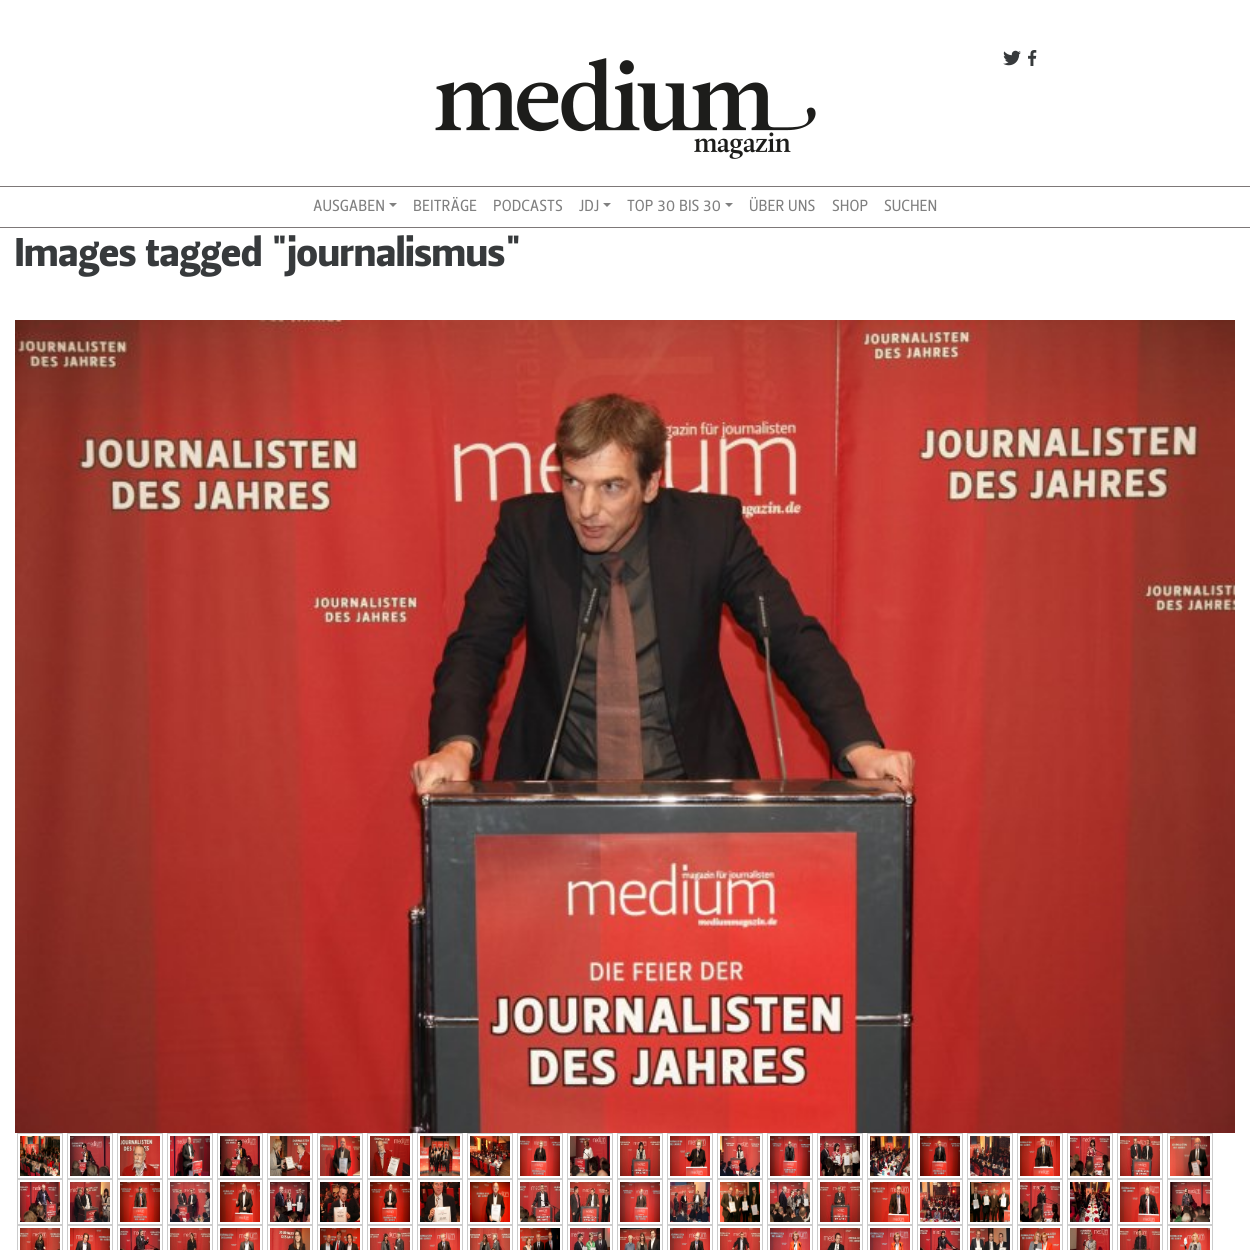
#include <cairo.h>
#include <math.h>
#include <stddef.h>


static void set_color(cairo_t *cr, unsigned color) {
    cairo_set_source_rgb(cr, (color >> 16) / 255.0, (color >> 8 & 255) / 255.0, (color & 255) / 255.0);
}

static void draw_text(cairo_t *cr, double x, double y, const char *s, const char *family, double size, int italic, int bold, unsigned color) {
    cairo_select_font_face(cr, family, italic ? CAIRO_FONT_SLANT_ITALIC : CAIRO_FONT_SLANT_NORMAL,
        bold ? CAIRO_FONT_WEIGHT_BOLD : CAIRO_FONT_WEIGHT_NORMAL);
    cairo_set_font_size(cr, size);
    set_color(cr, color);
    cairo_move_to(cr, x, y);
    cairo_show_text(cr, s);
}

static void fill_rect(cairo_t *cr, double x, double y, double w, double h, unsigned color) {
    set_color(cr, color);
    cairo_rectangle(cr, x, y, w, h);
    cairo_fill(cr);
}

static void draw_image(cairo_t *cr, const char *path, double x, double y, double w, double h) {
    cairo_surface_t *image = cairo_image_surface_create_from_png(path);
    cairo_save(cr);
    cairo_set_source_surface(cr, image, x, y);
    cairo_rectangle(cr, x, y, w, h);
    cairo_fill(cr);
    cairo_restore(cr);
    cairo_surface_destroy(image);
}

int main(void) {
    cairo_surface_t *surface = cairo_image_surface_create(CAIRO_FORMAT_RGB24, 1250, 1250);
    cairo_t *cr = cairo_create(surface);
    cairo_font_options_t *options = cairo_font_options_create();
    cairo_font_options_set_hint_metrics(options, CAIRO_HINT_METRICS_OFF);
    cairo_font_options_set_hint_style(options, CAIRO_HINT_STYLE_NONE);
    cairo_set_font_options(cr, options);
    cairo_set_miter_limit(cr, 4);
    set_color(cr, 0xFFFFFF);
    cairo_paint(cr);
    draw_image(cr, "assets/img1.png", 435, 58, 381, 101);
    draw_image(cr, "assets/img2.png", 1003, 50, 18, 16);
    draw_image(cr, "assets/img3.png", 1028, 50, 9, 16);
    fill_rect(cr, 0, 186, 1250, 1, 0x7D7878);
    fill_rect(cr, 0, 227, 1250, 1, 0x7D7878);
    draw_text(cr, 313, 211, "AUSGABEN", "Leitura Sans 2", 16, 0, 0, 0x808080);
    cairo_new_path(cr);
    cairo_move_to(cr, 389, 203);
    cairo_line_to(cr, 397, 203);
    cairo_line_to(cr, 393, 207);
    cairo_close_path(cr);
    cairo_fill(cr);
    draw_text(cr, 413, 211, "BEITRÄGE", "Leitura Sans 2", 16, 0, 0, 0x808080);
    draw_text(cr, 493, 211, "PODCASTS", "Leitura Sans 2", 16, 0, 0, 0x808080);
    draw_text(cr, 579, 211, "JDJ", "Leitura Sans 2", 16, 0, 0, 0x808080);
    cairo_new_path(cr);
    cairo_move_to(cr, 603, 203);
    cairo_line_to(cr, 611, 203);
    cairo_line_to(cr, 607, 207);
    cairo_close_path(cr);
    cairo_fill(cr);
    draw_text(cr, 627, 211, "TOP 30 BIS 30", "Leitura Sans 2", 16, 0, 0, 0x808080);
    cairo_new_path(cr);
    cairo_move_to(cr, 725, 203);
    cairo_line_to(cr, 733, 203);
    cairo_line_to(cr, 729, 207);
    cairo_close_path(cr);
    cairo_fill(cr);
    draw_text(cr, 749, 211, "ÜBER UNS", "Leitura Sans 2", 16, 0, 0, 0x808080);
    draw_text(cr, 832, 211, "SHOP", "Leitura Sans 2", 16, 0, 0, 0x808080);
    draw_text(cr, 884, 211, "SUCHEN", "Leitura Sans 2", 16, 0, 0, 0x808080);
    draw_text(cr, 15, 266, "Images tagged \"journalismus\"", "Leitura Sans", 40, 0, 0, 0x373A3C);
    draw_image(cr, "assets/img4.png", 15, 320, 1220, 813);
    cairo_rectangle(cr, 17.5, 1133.5, 45, 45);
    set_color(cr, 0xCCCCCC);
    cairo_set_line_width(cr, 1);
    cairo_stroke(cr);
    draw_image(cr, "assets/img5.png", 20, 1136, 40, 40);
    cairo_rectangle(cr, 67.5, 1133.5, 45, 45);
    cairo_stroke(cr);
    draw_image(cr, "assets/img6.png", 70, 1136, 40, 40);
    cairo_rectangle(cr, 117.5, 1133.5, 45, 45);
    cairo_stroke(cr);
    draw_image(cr, "assets/img7.png", 120, 1136, 40, 40);
    cairo_rectangle(cr, 167.5, 1133.5, 45, 45);
    cairo_stroke(cr);
    draw_image(cr, "assets/img8.png", 170, 1136, 40, 40);
    cairo_rectangle(cr, 217.5, 1133.5, 45, 45);
    cairo_stroke(cr);
    draw_image(cr, "assets/img9.png", 220, 1136, 40, 40);
    cairo_rectangle(cr, 267.5, 1133.5, 45, 45);
    cairo_stroke(cr);
    draw_image(cr, "assets/img10.png", 270, 1136, 40, 40);
    cairo_rectangle(cr, 317.5, 1133.5, 45, 45);
    cairo_stroke(cr);
    draw_image(cr, "assets/img11.png", 320, 1136, 40, 40);
    cairo_rectangle(cr, 367.5, 1133.5, 45, 45);
    cairo_stroke(cr);
    draw_image(cr, "assets/img12.png", 370, 1136, 40, 40);
    cairo_rectangle(cr, 417.5, 1133.5, 45, 45);
    cairo_stroke(cr);
    draw_image(cr, "assets/img13.png", 420, 1136, 40, 40);
    cairo_rectangle(cr, 467.5, 1133.5, 45, 45);
    cairo_stroke(cr);
    draw_image(cr, "assets/img14.png", 470, 1136, 40, 40);
    cairo_rectangle(cr, 517.5, 1133.5, 45, 45);
    cairo_stroke(cr);
    draw_image(cr, "assets/img15.png", 520, 1136, 40, 40);
    cairo_rectangle(cr, 567.5, 1133.5, 45, 45);
    cairo_stroke(cr);
    draw_image(cr, "assets/img16.png", 570, 1136, 40, 40);
    cairo_rectangle(cr, 617.5, 1133.5, 45, 45);
    cairo_stroke(cr);
    draw_image(cr, "assets/img17.png", 620, 1136, 40, 40);
    cairo_rectangle(cr, 667.5, 1133.5, 45, 45);
    cairo_stroke(cr);
    draw_image(cr, "assets/img18.png", 670, 1136, 40, 40);
    cairo_rectangle(cr, 717.5, 1133.5, 45, 45);
    cairo_stroke(cr);
    draw_image(cr, "assets/img19.png", 720, 1136, 40, 40);
    cairo_rectangle(cr, 767.5, 1133.5, 45, 45);
    cairo_stroke(cr);
    draw_image(cr, "assets/img20.png", 770, 1136, 40, 40);
    cairo_rectangle(cr, 817.5, 1133.5, 45, 45);
    cairo_stroke(cr);
    draw_image(cr, "assets/img21.png", 820, 1136, 40, 40);
    cairo_rectangle(cr, 867.5, 1133.5, 45, 45);
    cairo_stroke(cr);
    draw_image(cr, "assets/img22.png", 870, 1136, 40, 40);
    cairo_rectangle(cr, 917.5, 1133.5, 45, 45);
    cairo_stroke(cr);
    draw_image(cr, "assets/img23.png", 920, 1136, 40, 40);
    cairo_rectangle(cr, 967.5, 1133.5, 45, 45);
    cairo_stroke(cr);
    draw_image(cr, "assets/img24.png", 970, 1136, 40, 40);
    cairo_rectangle(cr, 1017.5, 1133.5, 45, 45);
    cairo_stroke(cr);
    draw_image(cr, "assets/img25.png", 1020, 1136, 40, 40);
    cairo_rectangle(cr, 1067.5, 1133.5, 45, 45);
    cairo_stroke(cr);
    draw_image(cr, "assets/img26.png", 1070, 1136, 40, 40);
    cairo_rectangle(cr, 1117.5, 1133.5, 45, 45);
    cairo_stroke(cr);
    draw_image(cr, "assets/img27.png", 1120, 1136, 40, 40);
    cairo_rectangle(cr, 1167.5, 1133.5, 45, 45);
    cairo_stroke(cr);
    draw_image(cr, "assets/img28.png", 1170, 1136, 40, 40);
    cairo_rectangle(cr, 17.5, 1179.5, 45, 45);
    cairo_stroke(cr);
    draw_image(cr, "assets/img29.png", 20, 1182, 40, 40);
    cairo_rectangle(cr, 67.5, 1179.5, 45, 45);
    cairo_stroke(cr);
    draw_image(cr, "assets/img30.png", 70, 1182, 40, 40);
    cairo_rectangle(cr, 117.5, 1179.5, 45, 45);
    cairo_stroke(cr);
    draw_image(cr, "assets/img31.png", 120, 1182, 40, 40);
    cairo_rectangle(cr, 167.5, 1179.5, 45, 45);
    cairo_stroke(cr);
    draw_image(cr, "assets/img32.png", 170, 1182, 40, 40);
    cairo_rectangle(cr, 217.5, 1179.5, 45, 45);
    cairo_stroke(cr);
    draw_image(cr, "assets/img33.png", 220, 1182, 40, 40);
    cairo_rectangle(cr, 267.5, 1179.5, 45, 45);
    cairo_stroke(cr);
    draw_image(cr, "assets/img34.png", 270, 1182, 40, 40);
    cairo_rectangle(cr, 317.5, 1179.5, 45, 45);
    cairo_stroke(cr);
    draw_image(cr, "assets/img35.png", 320, 1182, 40, 40);
    cairo_rectangle(cr, 367.5, 1179.5, 45, 45);
    cairo_stroke(cr);
    draw_image(cr, "assets/img36.png", 370, 1182, 40, 40);
    cairo_rectangle(cr, 417.5, 1179.5, 45, 45);
    cairo_stroke(cr);
    draw_image(cr, "assets/img37.png", 420, 1182, 40, 40);
    cairo_rectangle(cr, 467.5, 1179.5, 45, 45);
    cairo_stroke(cr);
    draw_image(cr, "assets/img38.png", 470, 1182, 40, 40);
    cairo_rectangle(cr, 517.5, 1179.5, 45, 45);
    cairo_stroke(cr);
    draw_image(cr, "assets/img39.png", 520, 1182, 40, 40);
    cairo_rectangle(cr, 567.5, 1179.5, 45, 45);
    cairo_stroke(cr);
    draw_image(cr, "assets/img40.png", 570, 1182, 40, 40);
    cairo_rectangle(cr, 617.5, 1179.5, 45, 45);
    cairo_stroke(cr);
    draw_image(cr, "assets/img41.png", 620, 1182, 40, 40);
    cairo_rectangle(cr, 667.5, 1179.5, 45, 45);
    cairo_stroke(cr);
    draw_image(cr, "assets/img42.png", 670, 1182, 40, 40);
    cairo_rectangle(cr, 717.5, 1179.5, 45, 45);
    cairo_stroke(cr);
    draw_image(cr, "assets/img43.png", 720, 1182, 40, 40);
    cairo_rectangle(cr, 767.5, 1179.5, 45, 45);
    cairo_stroke(cr);
    draw_image(cr, "assets/img44.png", 770, 1182, 40, 40);
    cairo_rectangle(cr, 817.5, 1179.5, 45, 45);
    cairo_stroke(cr);
    draw_image(cr, "assets/img45.png", 820, 1182, 40, 40);
    cairo_rectangle(cr, 867.5, 1179.5, 45, 45);
    cairo_stroke(cr);
    draw_image(cr, "assets/img46.png", 870, 1182, 40, 40);
    cairo_rectangle(cr, 917.5, 1179.5, 45, 45);
    cairo_stroke(cr);
    draw_image(cr, "assets/img47.png", 920, 1182, 40, 40);
    cairo_rectangle(cr, 967.5, 1179.5, 45, 45);
    cairo_stroke(cr);
    draw_image(cr, "assets/img48.png", 970, 1182, 40, 40);
    cairo_rectangle(cr, 1017.5, 1179.5, 45, 45);
    cairo_stroke(cr);
    draw_image(cr, "assets/img49.png", 1020, 1182, 40, 40);
    cairo_rectangle(cr, 1067.5, 1179.5, 45, 45);
    cairo_stroke(cr);
    draw_image(cr, "assets/img50.png", 1070, 1182, 40, 40);
    cairo_rectangle(cr, 1117.5, 1179.5, 45, 45);
    cairo_stroke(cr);
    draw_image(cr, "assets/img51.png", 1120, 1182, 40, 40);
    cairo_rectangle(cr, 1167.5, 1179.5, 45, 45);
    cairo_stroke(cr);
    draw_image(cr, "assets/img52.png", 1170, 1182, 40, 40);
    cairo_rectangle(cr, 17.5, 1225.5, 45, 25);
    cairo_stroke(cr);
    draw_image(cr, "assets/img53.png", 20, 1228, 40, 22);
    cairo_rectangle(cr, 67.5, 1225.5, 45, 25);
    cairo_stroke(cr);
    draw_image(cr, "assets/img54.png", 70, 1228, 40, 22);
    cairo_rectangle(cr, 117.5, 1225.5, 45, 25);
    cairo_stroke(cr);
    draw_image(cr, "assets/img55.png", 120, 1228, 40, 22);
    cairo_rectangle(cr, 167.5, 1225.5, 45, 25);
    cairo_stroke(cr);
    draw_image(cr, "assets/img56.png", 170, 1228, 40, 22);
    cairo_rectangle(cr, 217.5, 1225.5, 45, 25);
    cairo_stroke(cr);
    draw_image(cr, "assets/img57.png", 220, 1228, 40, 22);
    cairo_rectangle(cr, 267.5, 1225.5, 45, 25);
    cairo_stroke(cr);
    draw_image(cr, "assets/img58.png", 270, 1228, 40, 22);
    cairo_rectangle(cr, 317.5, 1225.5, 45, 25);
    cairo_stroke(cr);
    draw_image(cr, "assets/img59.png", 320, 1228, 40, 22);
    cairo_rectangle(cr, 367.5, 1225.5, 45, 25);
    cairo_stroke(cr);
    draw_image(cr, "assets/img60.png", 370, 1228, 40, 22);
    cairo_rectangle(cr, 417.5, 1225.5, 45, 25);
    cairo_stroke(cr);
    draw_image(cr, "assets/img61.png", 420, 1228, 40, 22);
    cairo_rectangle(cr, 467.5, 1225.5, 45, 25);
    cairo_stroke(cr);
    draw_image(cr, "assets/img62.png", 470, 1228, 40, 22);
    cairo_rectangle(cr, 517.5, 1225.5, 45, 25);
    cairo_stroke(cr);
    draw_image(cr, "assets/img63.png", 520, 1228, 40, 22);
    cairo_rectangle(cr, 567.5, 1225.5, 45, 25);
    cairo_stroke(cr);
    draw_image(cr, "assets/img64.png", 570, 1228, 40, 22);
    cairo_rectangle(cr, 617.5, 1225.5, 45, 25);
    cairo_stroke(cr);
    draw_image(cr, "assets/img65.png", 620, 1228, 40, 22);
    cairo_rectangle(cr, 667.5, 1225.5, 45, 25);
    cairo_stroke(cr);
    draw_image(cr, "assets/img66.png", 670, 1228, 40, 22);
    cairo_rectangle(cr, 717.5, 1225.5, 45, 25);
    cairo_stroke(cr);
    draw_image(cr, "assets/img67.png", 720, 1228, 40, 22);
    cairo_rectangle(cr, 767.5, 1225.5, 45, 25);
    cairo_stroke(cr);
    draw_image(cr, "assets/img68.png", 770, 1228, 40, 22);
    cairo_rectangle(cr, 817.5, 1225.5, 45, 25);
    cairo_stroke(cr);
    draw_image(cr, "assets/img69.png", 820, 1228, 40, 22);
    cairo_rectangle(cr, 867.5, 1225.5, 45, 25);
    cairo_stroke(cr);
    draw_image(cr, "assets/img70.png", 870, 1228, 40, 22);
    cairo_rectangle(cr, 917.5, 1225.5, 45, 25);
    cairo_stroke(cr);
    draw_image(cr, "assets/img71.png", 920, 1228, 40, 22);
    cairo_rectangle(cr, 967.5, 1225.5, 45, 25);
    cairo_stroke(cr);
    draw_image(cr, "assets/img72.png", 970, 1228, 40, 22);
    cairo_rectangle(cr, 1017.5, 1225.5, 45, 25);
    cairo_stroke(cr);
    draw_image(cr, "assets/img73.png", 1020, 1228, 40, 22);
    cairo_rectangle(cr, 1067.5, 1225.5, 45, 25);
    cairo_stroke(cr);
    draw_image(cr, "assets/img74.png", 1070, 1228, 40, 22);
    cairo_rectangle(cr, 1117.5, 1225.5, 45, 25);
    cairo_stroke(cr);
    draw_image(cr, "assets/img75.png", 1120, 1228, 40, 22);
    cairo_rectangle(cr, 1167.5, 1225.5, 45, 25);
    cairo_stroke(cr);
    draw_image(cr, "assets/img76.png", 1170, 1228, 40, 22);
    cairo_surface_write_to_png(surface, "output.png");
    cairo_font_options_destroy(options);
    cairo_destroy(cr);
    cairo_surface_destroy(surface);
    return 0;
}
